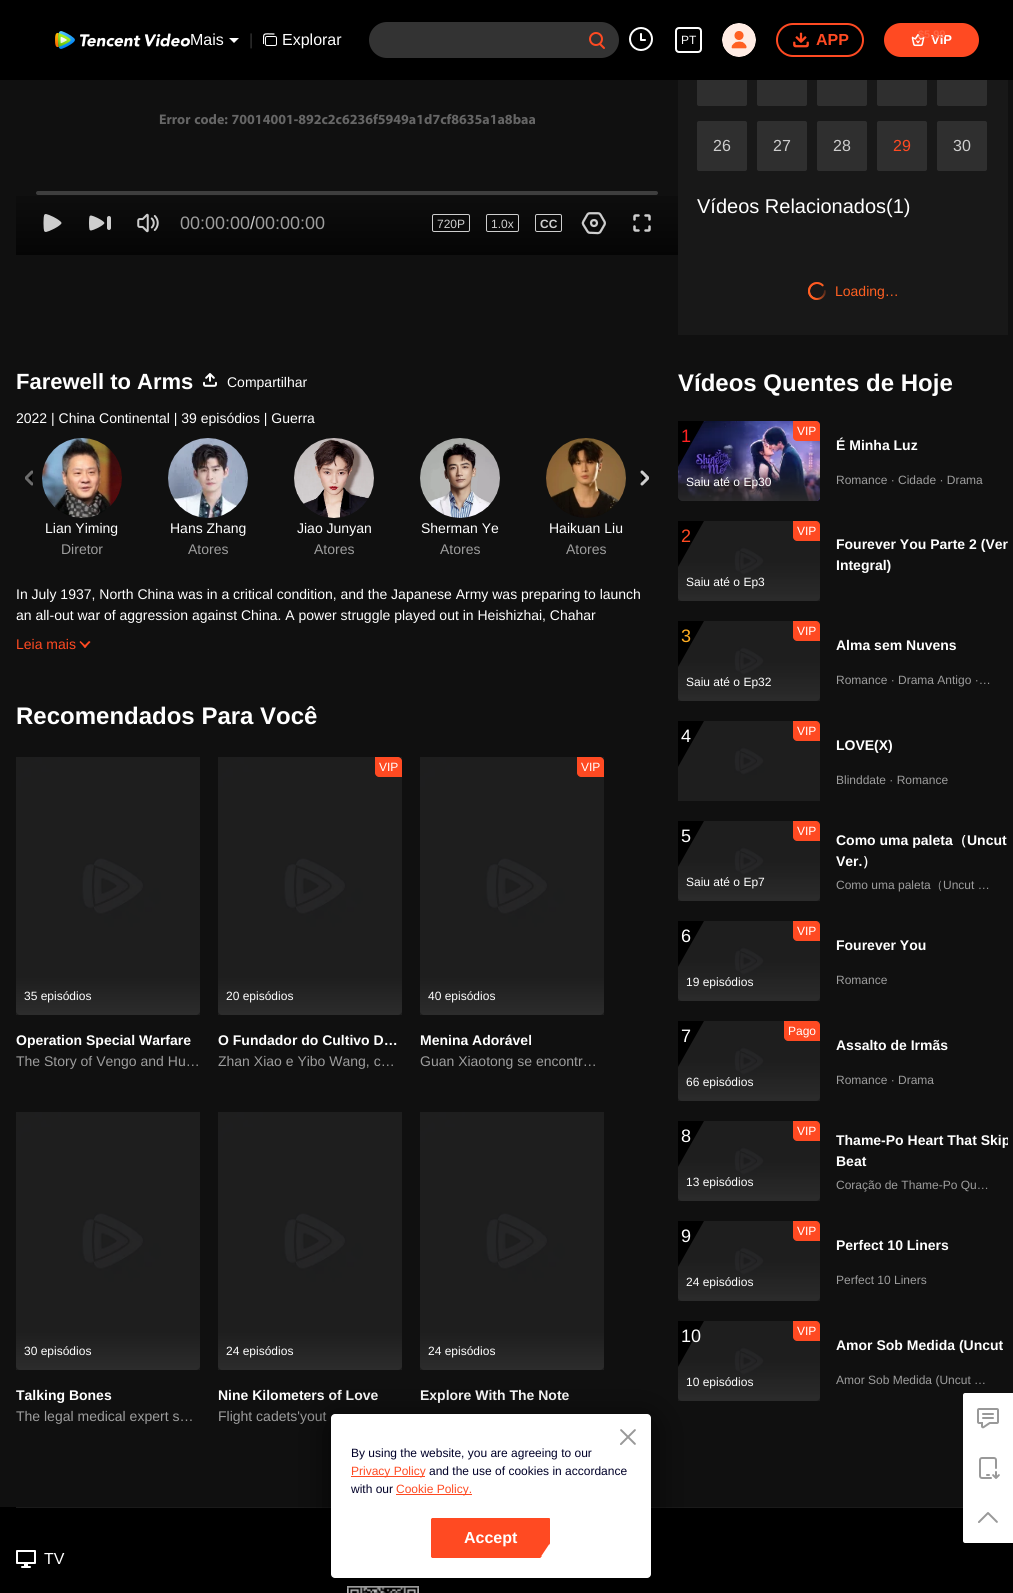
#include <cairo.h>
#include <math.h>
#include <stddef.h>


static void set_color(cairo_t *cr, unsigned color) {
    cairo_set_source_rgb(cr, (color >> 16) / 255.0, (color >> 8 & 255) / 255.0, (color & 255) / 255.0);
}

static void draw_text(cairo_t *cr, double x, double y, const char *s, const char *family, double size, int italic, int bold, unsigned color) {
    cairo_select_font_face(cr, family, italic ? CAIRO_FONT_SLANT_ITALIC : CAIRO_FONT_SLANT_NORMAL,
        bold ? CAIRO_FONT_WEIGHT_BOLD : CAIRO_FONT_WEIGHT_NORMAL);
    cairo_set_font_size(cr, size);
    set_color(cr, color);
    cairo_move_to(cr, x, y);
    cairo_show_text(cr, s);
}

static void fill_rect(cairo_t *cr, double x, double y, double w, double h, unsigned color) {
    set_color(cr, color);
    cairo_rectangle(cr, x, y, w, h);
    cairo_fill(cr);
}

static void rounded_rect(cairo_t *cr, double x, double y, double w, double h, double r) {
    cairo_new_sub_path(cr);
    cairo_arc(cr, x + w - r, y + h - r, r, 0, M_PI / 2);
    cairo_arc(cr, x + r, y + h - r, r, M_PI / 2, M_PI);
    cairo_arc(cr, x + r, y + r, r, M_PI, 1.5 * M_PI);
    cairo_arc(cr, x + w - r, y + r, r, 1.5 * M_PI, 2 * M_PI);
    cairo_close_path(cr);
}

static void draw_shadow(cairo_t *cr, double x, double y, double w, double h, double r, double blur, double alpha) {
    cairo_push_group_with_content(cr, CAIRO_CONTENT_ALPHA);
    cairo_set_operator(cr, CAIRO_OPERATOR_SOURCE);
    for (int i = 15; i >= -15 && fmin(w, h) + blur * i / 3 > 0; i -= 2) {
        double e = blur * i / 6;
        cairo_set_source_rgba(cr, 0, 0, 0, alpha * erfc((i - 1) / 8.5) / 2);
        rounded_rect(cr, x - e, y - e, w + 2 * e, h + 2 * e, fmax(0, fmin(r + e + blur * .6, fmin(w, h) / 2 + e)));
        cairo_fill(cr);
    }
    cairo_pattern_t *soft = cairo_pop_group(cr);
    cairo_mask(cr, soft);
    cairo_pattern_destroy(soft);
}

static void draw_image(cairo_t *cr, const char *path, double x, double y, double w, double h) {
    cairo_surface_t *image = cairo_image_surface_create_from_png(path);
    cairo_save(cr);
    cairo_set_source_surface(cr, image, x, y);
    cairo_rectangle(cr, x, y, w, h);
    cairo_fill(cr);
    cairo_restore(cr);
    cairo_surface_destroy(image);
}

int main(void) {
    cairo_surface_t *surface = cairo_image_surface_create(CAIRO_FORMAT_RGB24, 1013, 1593);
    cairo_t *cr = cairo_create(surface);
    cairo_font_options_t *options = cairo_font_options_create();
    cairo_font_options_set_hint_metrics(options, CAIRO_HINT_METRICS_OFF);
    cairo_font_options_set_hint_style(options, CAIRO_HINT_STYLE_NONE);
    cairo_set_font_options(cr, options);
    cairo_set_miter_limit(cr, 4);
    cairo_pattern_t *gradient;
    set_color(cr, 0x000000);
    cairo_paint(cr);
    fill_rect(cr, 0, 80, 1013, 1427, 0x101010);
    fill_rect(cr, 678, 80, 330, 255, 0x181818);
    set_color(cr, 0x2F2F2F);
    rounded_rect(cr, 697, 56, 50, 50, 2);
    cairo_fill(cr);
    rounded_rect(cr, 757, 56, 50, 50, 2);
    cairo_fill(cr);
    rounded_rect(cr, 817, 56, 50, 50, 2);
    cairo_fill(cr);
    rounded_rect(cr, 877, 56, 50, 50, 2);
    cairo_fill(cr);
    rounded_rect(cr, 937, 56, 50, 50, 2);
    cairo_fill(cr);
    fill_rect(cr, 697, 56, 290, 24, 0x000000);
    draw_image(cr, "assets/img1.png", 55, 31, 135, 18);
    draw_text(cr, 190, 45, "Mais", "Liberation Sans", 16, 0, 0, 0xFFFFFF);
    cairo_new_path(cr);
    cairo_move_to(cr, 229, 38);
    cairo_line_to(cr, 239, 38);
    cairo_line_to(cr, 234, 43);
    cairo_close_path(cr);
    cairo_fill(cr);
    draw_text(cr, 249, 45, "|", "Liberation Sans", 16, 0, 0, 0x333333);
    rounded_rect(cr, 265.5, 36.5, 11, 9, 1.5);
    set_color(cr, 0xFFFFFF);
    cairo_set_line_width(cr, 1);
    cairo_stroke(cr);
    cairo_save(cr);
    cairo_rectangle(cr, 263, 33, 14, 14);
    cairo_clip(cr);
    cairo_new_path(cr);
    cairo_move_to(cr, 274, 34);
    cairo_curve_to(cr, 262.5, 34, 263.5, 32, 263.5, 43.5);
    cairo_set_line_width(cr, 1.2);
    cairo_set_line_cap(cr, CAIRO_LINE_CAP_ROUND);
    cairo_stroke(cr);
    cairo_restore(cr);
    draw_text(cr, 282, 45, "Explorar", "Liberation Sans", 16, 0, 0, 0xFFFFFF);
    set_color(cr, 0x333333);
    rounded_rect(cr, 369, 22, 250, 36, 18);
    cairo_fill(cr);
    draw_image(cr, "assets/img2.png", 589, 32, 16, 17);
    draw_image(cr, "assets/img3.png", 629, 27, 24, 24);
    rounded_rect(cr, 676, 28, 25, 24, 3);
    set_color(cr, 0xFFFFFF);
    cairo_set_line_width(cr, 2);
    cairo_stroke(cr);
    draw_text(cr, 681, 44, "PT", "Liberation Sans", 12, 0, 0, 0xFFFFFF);
    draw_image(cr, "assets/img4.png", 722, 23, 34, 34);
    rounded_rect(cr, 777, 24, 86, 32, 16);
    set_color(cr, 0xFF4A22);
    cairo_stroke(cr);
    draw_image(cr, "assets/img5.png", 793, 32, 16, 16);
    draw_text(cr, 816, 45, "APP", "Liberation Sans", 16, 0, 1, 0xFF4A22);
    rounded_rect(cr, 884, 23, 95, 34, 17);
    cairo_fill(cr);
    draw_image(cr, "assets/img6.png", 911, 34, 14, 13);
    draw_text(cr, 931, 44, "VIP", "Liberation Sans", 13, 0, 1, 0xFFFFFF);
    draw_text(cr, 918, 38, "$5.99", "Liberation Sans", 11, 0, 1, 0xFF6543);
    draw_text(cr, 159, 124, "Error code: 70014001-892c2c6236f5949a1d7cf8635a1a8baa", "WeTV", 14, 0, 1, 0x666666);
    gradient = cairo_pattern_create_linear(347, 171, 347, 255);
    cairo_pattern_add_color_stop_rgba(gradient, 0, 0.067, 0.067, 0.067, 1);
    cairo_pattern_add_color_stop_rgba(gradient, 1, 0.02, 0.02, 0.02, 1);
    cairo_set_source(cr, gradient);
    cairo_pattern_destroy(gradient);
    cairo_rectangle(cr, 16, 196, 662, 59);
    cairo_fill(cr);
    set_color(cr, 0x3E3E3E);
    rounded_rect(cr, 36, 191, 622, 4, 2);
    cairo_fill(cr);
    draw_image(cr, "assets/img7.png", 43, 214, 19, 18);
    draw_image(cr, "assets/img8.png", 89, 215, 22, 16);
    draw_image(cr, "assets/img9.png", 137, 213, 22, 20);
    draw_text(cr, 180, 229, "00:00:00", "Liberation Sans", 18, 0, 0, 0x9D9D9D);
    draw_text(cr, 250, 229, "/", "Liberation Sans", 18, 0, 0, 0xCECECE);
    draw_text(cr, 255, 229, "00:00:00", "Liberation Sans", 18, 0, 0, 0x9D9D9D);
    rounded_rect(cr, 432.5, 214.5, 37, 17, 1.5);
    cairo_set_source_rgba(cr, 1, 1, 1, 0.8);
    cairo_set_line_width(cr, 1);
    cairo_stroke(cr);
    draw_text(cr, 437, 228, "720P", "Liberation Sans", 12, 0, 0, 0xCECECE);
    rounded_rect(cr, 486.5, 214.5, 32, 17, 1.5);
    cairo_set_source_rgba(cr, 1, 1, 1, 0.8);
    cairo_stroke(cr);
    draw_text(cr, 491, 228, "1.0x", "Liberation Sans", 12, 0, 0, 0xCECECE);
    rounded_rect(cr, 535.5, 214.5, 26, 17, 1.5);
    cairo_set_source_rgba(cr, 1, 1, 1, 0.8);
    cairo_stroke(cr);
    draw_text(cr, 540, 228, "CC", "Liberation Sans", 12, 0, 1, 0xCECECE);
    draw_image(cr, "assets/img10.png", 581, 212, 25, 23);
    draw_image(cr, "assets/img11.png", 633, 214, 18, 18);
    set_color(cr, 0x2F2F2F);
    rounded_rect(cr, 697, 121, 50, 50, 2);
    cairo_fill(cr);
    draw_text(cr, 713, 151, "26", "Liberation Sans", 16, 0, 0, 0xCECECE);
    set_color(cr, 0x2F2F2F);
    rounded_rect(cr, 757, 121, 50, 50, 2);
    cairo_fill(cr);
    draw_text(cr, 773, 151, "27", "Liberation Sans", 16, 0, 0, 0xCECECE);
    set_color(cr, 0x2F2F2F);
    rounded_rect(cr, 817, 121, 50, 50, 2);
    cairo_fill(cr);
    draw_text(cr, 833, 151, "28", "Liberation Sans", 16, 0, 0, 0xCECECE);
    set_color(cr, 0x2F2F2F);
    rounded_rect(cr, 877, 121, 50, 50, 2);
    cairo_fill(cr);
    draw_text(cr, 893, 151, "29", "Liberation Sans", 16, 0, 0, 0xFF4A22);
    set_color(cr, 0x2F2F2F);
    rounded_rect(cr, 937, 121, 50, 50, 2);
    cairo_fill(cr);
    draw_text(cr, 953, 151, "30", "Liberation Sans", 16, 0, 0, 0xCECECE);
    draw_text(cr, 697, 213, "Vídeos Relacionados(1)", "Liberation Sans", 20, 0, 0, 0xFFFFFF);
    draw_image(cr, "assets/img12.png", 808, 282, 18, 18);
    draw_text(cr, 835, 296, "Loading…", "Liberation Sans", 14, 0, 0, 0xFF6022);
    draw_text(cr, 16, 389, "Farewell to Arms", "Liberation Sans", 22, 0, 1, 0xFFFFFF);
    draw_image(cr, "assets/img13.png", 203, 373, 14, 14);
    draw_text(cr, 227, 387, "Compartilhar", "Liberation Sans", 14, 0, 0, 0xFFFFFF);
    draw_text(cr, 16, 423, "2022 | China Continental | 39 episódios | Guerra", "Liberation Sans", 14, 0, 0, 0xFFFFFF);
    set_color(cr, 0x000000);
    cairo_new_path(cr);
    cairo_move_to(cr, 32, 472);
    cairo_line_to(cr, 26.5, 477.5);
    cairo_line_to(cr, 26.5, 478.5);
    cairo_line_to(cr, 32, 484);
    cairo_fill(cr);
    cairo_save(cr);
    cairo_rectangle(cr, 23, 470, 10, 16);
    cairo_clip(cr);
    cairo_new_path(cr);
    cairo_move_to(cr, 32, 472);
    cairo_line_to(cr, 26.5, 477.5);
    cairo_line_to(cr, 26.5, 478.5);
    cairo_line_to(cr, 32, 484);
    cairo_set_source_rgba(cr, 1, 1, 1, 0.4);
    cairo_set_line_width(cr, 3);
    cairo_set_line_cap(cr, CAIRO_LINE_CAP_ROUND);
    cairo_set_line_join(cr, CAIRO_LINE_JOIN_ROUND);
    cairo_stroke(cr);
    cairo_restore(cr);
    cairo_new_path(cr);
    cairo_move_to(cr, 642, 484);
    cairo_line_to(cr, 647.5, 478.5);
    cairo_line_to(cr, 647.5, 477.5);
    cairo_line_to(cr, 642, 472);
    cairo_fill_preserve(cr);
    cairo_set_source_rgba(cr, 1, 1, 1, 0.8);
    cairo_set_line_width(cr, 3);
    cairo_set_line_cap(cr, CAIRO_LINE_CAP_ROUND);
    cairo_set_line_join(cr, CAIRO_LINE_JOIN_ROUND);
    cairo_stroke(cr);
    draw_image(cr, "assets/img14.png", 42, 438, 80, 80);
    draw_text(cr, 45, 533, "Lian Yiming", "Liberation Sans", 14, 0, 0, 0xFFFFFF);
    draw_text(cr, 61, 554, "Diretor", "Liberation Sans", 14, 0, 0, 0x9D9D9D);
    draw_image(cr, "assets/img15.png", 168, 438, 80, 80);
    draw_text(cr, 170, 533, "Hans Zhang", "Liberation Sans", 14, 0, 0, 0xFFFFFF);
    draw_text(cr, 188, 554, "Atores", "Liberation Sans", 14, 0, 0, 0x9D9D9D);
    draw_image(cr, "assets/img16.png", 294, 438, 80, 80);
    draw_text(cr, 297, 533, "Jiao Junyan", "Liberation Sans", 14, 0, 0, 0xFFFFFF);
    draw_text(cr, 314, 554, "Atores", "Liberation Sans", 14, 0, 0, 0x9D9D9D);
    draw_image(cr, "assets/img17.png", 420, 438, 80, 80);
    draw_text(cr, 421, 533, "Sherman Ye", "Liberation Sans", 14, 0, 0, 0xFFFFFF);
    draw_text(cr, 440, 554, "Atores", "Liberation Sans", 14, 0, 0, 0x9D9D9D);
    draw_image(cr, "assets/img18.png", 546, 438, 80, 80);
    draw_text(cr, 549, 533, "Haikuan Liu", "Liberation Sans", 14, 0, 0, 0xFFFFFF);
    draw_text(cr, 566, 554, "Atores", "Liberation Sans", 14, 0, 0, 0x9D9D9D);
    draw_text(cr, 16, 599, "In July 1937, North China was in a critical condition, and the Japanese Army was preparing to launch", "Liberation Sans", 14, 0, 0, 0xFFFFFF);
    draw_text(cr, 16, 620, "an all-out war of aggression against China. A power struggle played out in Heishizhai, Chahar", "Liberation Sans", 14, 0, 0, 0xFFFFFF);
    draw_text(cr, 16, 649, "Leia mais", "Liberation Sans", 14, 0, 0, 0xFF4A22);
    cairo_new_path(cr);
    cairo_move_to(cr, 89, 641);
    cairo_line_to(cr, 90.5, 642);
    cairo_line_to(cr, 85, 648);
    cairo_line_to(cr, 83.5, 646.5);
    cairo_close_path(cr);
    cairo_fill(cr);
    cairo_new_path(cr);
    cairo_move_to(cr, 80.5, 641);
    cairo_line_to(cr, 86.5, 646.5);
    cairo_line_to(cr, 85, 648);
    cairo_line_to(cr, 79.5, 642);
    cairo_close_path(cr);
    cairo_fill(cr);
    draw_text(cr, 16, 724, "Recomendados Para Você", "Liberation Sans", 24, 0, 1, 0xFFFFFF);
    draw_image(cr, "assets/img19.png", 16, 757, 184, 258);
    gradient = cairo_pattern_create_linear(108, 1015, 108, 977);
    cairo_pattern_add_color_stop_rgba(gradient, 0, 0.173, 0.173, 0.173, 1);
    cairo_pattern_add_color_stop_rgba(gradient, 1, 0.118, 0.118, 0.118, 1);
    cairo_set_source(cr, gradient);
    cairo_pattern_destroy(gradient);
    cairo_new_path(cr);
    cairo_move_to(cr, 16, 977);
    cairo_line_to(cr, 200, 977);
    cairo_line_to(cr, 200, 1011);
    cairo_curve_to(cr, 200, 1013, 198, 1015, 196, 1015);
    cairo_line_to(cr, 20, 1015);
    cairo_curve_to(cr, 18, 1015, 16, 1013, 16, 1011);
    cairo_close_path(cr);
    cairo_fill(cr);
    draw_text(cr, 24, 1000, "35 episódios", "Liberation Sans", 12, 0, 0, 0xFFFFFF);
    draw_text(cr, 16, 1045, "Operation Special Warfare", "Liberation Sans", 14, 0, 1, 0xFFFFFF);
    draw_text(cr, 16, 1066, "The Story of Vengo and Hu…", "Liberation Sans", 14, 0, 0, 0x9D9D9D);
    draw_image(cr, "assets/img19.png", 218, 757, 184, 258);
    set_color(cr, 0xFF4A22);
    cairo_new_path(cr);
    cairo_move_to(cr, 375, 757);
    cairo_line_to(cr, 398, 757);
    cairo_curve_to(cr, 400, 757, 402, 759, 402, 761);
    cairo_line_to(cr, 402, 777);
    cairo_line_to(cr, 379, 777);
    cairo_curve_to(cr, 377, 777, 375, 775, 375, 773);
    cairo_close_path(cr);
    cairo_fill(cr);
    draw_text(cr, 379, 771, "VIP", "Liberation Sans", 12, 0, 0, 0xFFFFFF);
    gradient = cairo_pattern_create_linear(310, 1015, 310, 977);
    cairo_pattern_add_color_stop_rgba(gradient, 0, 0.173, 0.173, 0.173, 1);
    cairo_pattern_add_color_stop_rgba(gradient, 1, 0.118, 0.118, 0.118, 1);
    cairo_set_source(cr, gradient);
    cairo_pattern_destroy(gradient);
    cairo_new_path(cr);
    cairo_move_to(cr, 218, 977);
    cairo_line_to(cr, 402, 977);
    cairo_line_to(cr, 402, 1011);
    cairo_curve_to(cr, 402, 1013, 400, 1015, 398, 1015);
    cairo_line_to(cr, 222, 1015);
    cairo_curve_to(cr, 220, 1015, 218, 1013, 218, 1011);
    cairo_close_path(cr);
    cairo_fill(cr);
    draw_text(cr, 226, 1000, "20 episódios", "Liberation Sans", 12, 0, 0, 0xFFFFFF);
    draw_text(cr, 218, 1045, "O Fundador do Cultivo D…", "Liberation Sans", 14, 0, 1, 0xFFFFFF);
    draw_text(cr, 218, 1066, "Zhan Xiao e Yibo Wang, c…", "Liberation Sans", 14, 0, 0, 0x9D9D9D);
    draw_image(cr, "assets/img19.png", 420, 757, 184, 258);
    set_color(cr, 0xFF4A22);
    cairo_new_path(cr);
    cairo_move_to(cr, 577, 757);
    cairo_line_to(cr, 600, 757);
    cairo_curve_to(cr, 602, 757, 604, 759, 604, 761);
    cairo_line_to(cr, 604, 777);
    cairo_line_to(cr, 581, 777);
    cairo_curve_to(cr, 579, 777, 577, 775, 577, 773);
    cairo_close_path(cr);
    cairo_fill(cr);
    draw_text(cr, 581, 771, "VIP", "Liberation Sans", 12, 0, 0, 0xFFFFFF);
    gradient = cairo_pattern_create_linear(512, 1015, 512, 977);
    cairo_pattern_add_color_stop_rgba(gradient, 0, 0.173, 0.173, 0.173, 1);
    cairo_pattern_add_color_stop_rgba(gradient, 1, 0.118, 0.118, 0.118, 1);
    cairo_set_source(cr, gradient);
    cairo_pattern_destroy(gradient);
    cairo_new_path(cr);
    cairo_move_to(cr, 420, 977);
    cairo_line_to(cr, 604, 977);
    cairo_line_to(cr, 604, 1011);
    cairo_curve_to(cr, 604, 1013, 602, 1015, 600, 1015);
    cairo_line_to(cr, 424, 1015);
    cairo_curve_to(cr, 422, 1015, 420, 1013, 420, 1011);
    cairo_close_path(cr);
    cairo_fill(cr);
    draw_text(cr, 428, 1000, "40 episódios", "Liberation Sans", 12, 0, 0, 0xFFFFFF);
    draw_text(cr, 420, 1045, "Menina Adorável", "Liberation Sans", 14, 0, 1, 0xFFFFFF);
    draw_text(cr, 420, 1066, "Guan Xiaotong se encontr…", "Liberation Sans", 14, 0, 0, 0x9D9D9D);
    draw_image(cr, "assets/img19.png", 16, 1112, 184, 258);
    gradient = cairo_pattern_create_linear(108, 1370, 108, 1332);
    cairo_pattern_add_color_stop_rgba(gradient, 0, 0.173, 0.173, 0.173, 1);
    cairo_pattern_add_color_stop_rgba(gradient, 1, 0.118, 0.118, 0.118, 1);
    cairo_set_source(cr, gradient);
    cairo_pattern_destroy(gradient);
    cairo_new_path(cr);
    cairo_move_to(cr, 16, 1332);
    cairo_line_to(cr, 200, 1332);
    cairo_line_to(cr, 200, 1366);
    cairo_curve_to(cr, 200, 1368, 198, 1370, 196, 1370);
    cairo_line_to(cr, 20, 1370);
    cairo_curve_to(cr, 18, 1370, 16, 1368, 16, 1366);
    cairo_close_path(cr);
    cairo_fill(cr);
    draw_text(cr, 24, 1355, "30 episódios", "Liberation Sans", 12, 0, 0, 0xFFFFFF);
    draw_text(cr, 16, 1400, "Talking Bones", "Liberation Sans", 14, 0, 1, 0xFFFFFF);
    draw_text(cr, 16, 1421, "The legal medical expert s…", "Liberation Sans", 14, 0, 0, 0x9D9D9D);
    draw_image(cr, "assets/img19.png", 218, 1112, 184, 258);
    gradient = cairo_pattern_create_linear(310, 1370, 310, 1332);
    cairo_pattern_add_color_stop_rgba(gradient, 0, 0.173, 0.173, 0.173, 1);
    cairo_pattern_add_color_stop_rgba(gradient, 1, 0.118, 0.118, 0.118, 1);
    cairo_set_source(cr, gradient);
    cairo_pattern_destroy(gradient);
    cairo_new_path(cr);
    cairo_move_to(cr, 218, 1332);
    cairo_line_to(cr, 402, 1332);
    cairo_line_to(cr, 402, 1366);
    cairo_curve_to(cr, 402, 1368, 400, 1370, 398, 1370);
    cairo_line_to(cr, 222, 1370);
    cairo_curve_to(cr, 220, 1370, 218, 1368, 218, 1366);
    cairo_close_path(cr);
    cairo_fill(cr);
    draw_text(cr, 226, 1355, "24 episódios", "Liberation Sans", 12, 0, 0, 0xFFFFFF);
    draw_text(cr, 218, 1400, "Nine Kilometers of Love", "Liberation Sans", 14, 0, 1, 0xFFFFFF);
    draw_text(cr, 218, 1421, "Flight cadets'yout", "Liberation Sans", 14, 0, 0, 0x9D9D9D);
    draw_image(cr, "assets/img19.png", 420, 1112, 184, 258);
    gradient = cairo_pattern_create_linear(512, 1370, 512, 1332);
    cairo_pattern_add_color_stop_rgba(gradient, 0, 0.173, 0.173, 0.173, 1);
    cairo_pattern_add_color_stop_rgba(gradient, 1, 0.118, 0.118, 0.118, 1);
    cairo_set_source(cr, gradient);
    cairo_pattern_destroy(gradient);
    cairo_new_path(cr);
    cairo_move_to(cr, 420, 1332);
    cairo_line_to(cr, 604, 1332);
    cairo_line_to(cr, 604, 1366);
    cairo_curve_to(cr, 604, 1368, 602, 1370, 600, 1370);
    cairo_line_to(cr, 424, 1370);
    cairo_curve_to(cr, 422, 1370, 420, 1368, 420, 1366);
    cairo_close_path(cr);
    cairo_fill(cr);
    draw_text(cr, 428, 1355, "24 episódios", "Liberation Sans", 12, 0, 0, 0xFFFFFF);
    draw_text(cr, 420, 1400, "Explore With The Note", "Liberation Sans", 14, 0, 1, 0xFFFFFF);
    draw_text(cr, 678, 391, "Vídeos Quentes de Hoje", "Liberation Sans", 24, 0, 1, 0xFFFFFF);
    draw_image(cr, "assets/img20.png", 678, 421, 142, 80);
    set_color(cr, 0xFF4A22);
    cairo_new_path(cr);
    cairo_move_to(cr, 793, 421);
    cairo_line_to(cr, 816, 421);
    cairo_curve_to(cr, 818, 421, 820, 423, 820, 425);
    cairo_line_to(cr, 820, 441);
    cairo_line_to(cr, 797, 441);
    cairo_curve_to(cr, 795, 441, 793, 439, 793, 437);
    cairo_close_path(cr);
    cairo_fill(cr);
    draw_text(cr, 797, 435, "VIP", "Liberation Sans", 12, 0, 0, 0xFFFFFF);
    set_color(cr, 0x000000);
    cairo_new_path(cr);
    cairo_move_to(cr, 678, 421);
    cairo_line_to(cr, 678, 467);
    cairo_line_to(cr, 704, 421);
    cairo_close_path(cr);
    cairo_fill(cr);
    gradient = cairo_pattern_create_linear(749, 501, 749, 463);
    cairo_pattern_add_color_stop_rgba(gradient, 0, 0.176, 0.176, 0.176, 0.9);
    cairo_pattern_add_color_stop_rgba(gradient, 1, 0.176, 0.176, 0.176, 0);
    cairo_set_source(cr, gradient);
    cairo_pattern_destroy(gradient);
    cairo_new_path(cr);
    cairo_move_to(cr, 678, 463);
    cairo_line_to(cr, 820, 463);
    cairo_line_to(cr, 820, 497);
    cairo_curve_to(cr, 820, 499, 818, 501, 816, 501);
    cairo_line_to(cr, 682, 501);
    cairo_curve_to(cr, 680, 501, 678, 499, 678, 497);
    cairo_close_path(cr);
    cairo_fill(cr);
    draw_text(cr, 686, 486, "Saiu até o Ep30", "Liberation Sans", 12, 0, 0, 0xFFFFFF);
    draw_text(cr, 681, 442, "1", "Liberation Sans", 18, 0, 0, 0xFF2222);
    draw_text(cr, 836, 450, "É Minha Luz", "Liberation Sans", 14, 0, 1, 0xFFFFFF);
    draw_text(cr, 836, 484, "Romance · Cidade · Drama", "Liberation Sans", 12, 0, 0, 0x9D9D9D);
    draw_image(cr, "assets/img21.png", 678, 521, 142, 80);
    set_color(cr, 0xFF4A22);
    cairo_new_path(cr);
    cairo_move_to(cr, 793, 521);
    cairo_line_to(cr, 816, 521);
    cairo_curve_to(cr, 818, 521, 820, 523, 820, 525);
    cairo_line_to(cr, 820, 541);
    cairo_line_to(cr, 797, 541);
    cairo_curve_to(cr, 795, 541, 793, 539, 793, 537);
    cairo_close_path(cr);
    cairo_fill(cr);
    draw_text(cr, 797, 535, "VIP", "Liberation Sans", 12, 0, 0, 0xFFFFFF);
    set_color(cr, 0x000000);
    cairo_new_path(cr);
    cairo_move_to(cr, 678, 521);
    cairo_line_to(cr, 678, 567);
    cairo_line_to(cr, 704, 521);
    cairo_close_path(cr);
    cairo_fill(cr);
    gradient = cairo_pattern_create_linear(749, 601, 749, 563);
    cairo_pattern_add_color_stop_rgba(gradient, 0, 0.176, 0.176, 0.176, 0.9);
    cairo_pattern_add_color_stop_rgba(gradient, 1, 0.176, 0.176, 0.176, 0);
    cairo_set_source(cr, gradient);
    cairo_pattern_destroy(gradient);
    cairo_new_path(cr);
    cairo_move_to(cr, 678, 563);
    cairo_line_to(cr, 820, 563);
    cairo_line_to(cr, 820, 597);
    cairo_curve_to(cr, 820, 599, 818, 601, 816, 601);
    cairo_line_to(cr, 682, 601);
    cairo_curve_to(cr, 680, 601, 678, 599, 678, 597);
    cairo_close_path(cr);
    cairo_fill(cr);
    draw_text(cr, 686, 586, "Saiu até o Ep3", "Liberation Sans", 12, 0, 0, 0xFFFFFF);
    draw_text(cr, 681, 542, "2", "Liberation Sans", 18, 0, 0, 0xFF4A22);
    draw_text(cr, 836, 549, "Fourever You Parte 2 (Ver", "Liberation Sans", 14, 0, 1, 0xFFFFFF);
    draw_text(cr, 836, 570, "Integral)", "Liberation Sans", 14, 0, 1, 0xFFFFFF);
    draw_image(cr, "assets/img21.png", 678, 621, 142, 80);
    set_color(cr, 0xFF4A22);
    cairo_new_path(cr);
    cairo_move_to(cr, 793, 621);
    cairo_line_to(cr, 816, 621);
    cairo_curve_to(cr, 818, 621, 820, 623, 820, 625);
    cairo_line_to(cr, 820, 641);
    cairo_line_to(cr, 797, 641);
    cairo_curve_to(cr, 795, 641, 793, 639, 793, 637);
    cairo_close_path(cr);
    cairo_fill(cr);
    draw_text(cr, 797, 635, "VIP", "Liberation Sans", 12, 0, 0, 0xFFFFFF);
    set_color(cr, 0x000000);
    cairo_new_path(cr);
    cairo_move_to(cr, 678, 621);
    cairo_line_to(cr, 678, 667);
    cairo_line_to(cr, 704, 621);
    cairo_close_path(cr);
    cairo_fill(cr);
    gradient = cairo_pattern_create_linear(749, 701, 749, 663);
    cairo_pattern_add_color_stop_rgba(gradient, 0, 0.176, 0.176, 0.176, 0.9);
    cairo_pattern_add_color_stop_rgba(gradient, 1, 0.176, 0.176, 0.176, 0);
    cairo_set_source(cr, gradient);
    cairo_pattern_destroy(gradient);
    cairo_new_path(cr);
    cairo_move_to(cr, 678, 663);
    cairo_line_to(cr, 820, 663);
    cairo_line_to(cr, 820, 697);
    cairo_curve_to(cr, 820, 699, 818, 701, 816, 701);
    cairo_line_to(cr, 682, 701);
    cairo_curve_to(cr, 680, 701, 678, 699, 678, 697);
    cairo_close_path(cr);
    cairo_fill(cr);
    draw_text(cr, 686, 686, "Saiu até o Ep32", "Liberation Sans", 12, 0, 0, 0xFFFFFF);
    draw_text(cr, 681, 642, "3", "Liberation Sans", 18, 0, 0, 0xFFAD22);
    draw_text(cr, 836, 650, "Alma sem Nuvens", "Liberation Sans", 14, 0, 1, 0xFFFFFF);
    draw_text(cr, 836, 684, "Romance · Drama Antigo ·…", "Liberation Sans", 12, 0, 0, 0x9D9D9D);
    draw_image(cr, "assets/img21.png", 678, 721, 142, 80);
    set_color(cr, 0x000000);
    cairo_new_path(cr);
    cairo_move_to(cr, 678, 721);
    cairo_line_to(cr, 678, 767);
    cairo_line_to(cr, 704, 721);
    cairo_close_path(cr);
    cairo_fill(cr);
    draw_text(cr, 681, 742, "4", "Liberation Sans", 18, 0, 0, 0xFFFFFF);
    set_color(cr, 0xFF4A22);
    cairo_new_path(cr);
    cairo_move_to(cr, 793, 721);
    cairo_line_to(cr, 816, 721);
    cairo_curve_to(cr, 818, 721, 820, 723, 820, 725);
    cairo_line_to(cr, 820, 741);
    cairo_line_to(cr, 797, 741);
    cairo_curve_to(cr, 795, 741, 793, 739, 793, 737);
    cairo_close_path(cr);
    cairo_fill(cr);
    draw_text(cr, 797, 735, "VIP", "Liberation Sans", 12, 0, 0, 0xFFFFFF);
    draw_text(cr, 836, 750, "LOVE(X)", "Liberation Sans", 14, 0, 1, 0xFFFFFF);
    draw_text(cr, 836, 784, "Blinddate · Romance", "Liberation Sans", 12, 0, 0, 0x9D9D9D);
    draw_image(cr, "assets/img21.png", 678, 821, 142, 80);
    set_color(cr, 0xFF4A22);
    cairo_new_path(cr);
    cairo_move_to(cr, 793, 821);
    cairo_line_to(cr, 816, 821);
    cairo_curve_to(cr, 818, 821, 820, 823, 820, 825);
    cairo_line_to(cr, 820, 841);
    cairo_line_to(cr, 797, 841);
    cairo_curve_to(cr, 795, 841, 793, 839, 793, 837);
    cairo_close_path(cr);
    cairo_fill(cr);
    draw_text(cr, 797, 835, "VIP", "Liberation Sans", 12, 0, 0, 0xFFFFFF);
    set_color(cr, 0x000000);
    cairo_new_path(cr);
    cairo_move_to(cr, 678, 821);
    cairo_line_to(cr, 678, 867);
    cairo_line_to(cr, 704, 821);
    cairo_close_path(cr);
    cairo_fill(cr);
    gradient = cairo_pattern_create_linear(749, 901, 749, 863);
    cairo_pattern_add_color_stop_rgba(gradient, 0, 0.176, 0.176, 0.176, 0.9);
    cairo_pattern_add_color_stop_rgba(gradient, 1, 0.176, 0.176, 0.176, 0);
    cairo_set_source(cr, gradient);
    cairo_pattern_destroy(gradient);
    cairo_new_path(cr);
    cairo_move_to(cr, 678, 863);
    cairo_line_to(cr, 820, 863);
    cairo_line_to(cr, 820, 897);
    cairo_curve_to(cr, 820, 899, 818, 901, 816, 901);
    cairo_line_to(cr, 682, 901);
    cairo_curve_to(cr, 680, 901, 678, 899, 678, 897);
    cairo_close_path(cr);
    cairo_fill(cr);
    draw_text(cr, 686, 886, "Saiu até o Ep7", "Liberation Sans", 12, 0, 0, 0xFFFFFF);
    draw_text(cr, 681, 842, "5", "Liberation Sans", 18, 0, 0, 0xFFFFFF);
    draw_text(cr, 836, 845, "Como uma paleta", "Liberation Sans", 14, 0, 1, 0xFFFFFF);
    draw_text(cr, 953, 845, "（", "WenQuanYi Zen Hei", 14, 0, 1, 0xFFFFFF);
    draw_text(cr, 967, 845, "Uncut", "Liberation Sans", 14, 0, 1, 0xFFFFFF);
    draw_text(cr, 836, 866, "Ver.", "Liberation Sans", 14, 0, 1, 0xFFFFFF);
    draw_text(cr, 862, 866, "）", "WenQuanYi Zen Hei", 14, 0, 1, 0xFFFFFF);
    draw_text(cr, 836, 889, "Como uma paleta", "Liberation Sans", 12, 0, 0, 0x9D9D9D);
    draw_text(cr, 931, 889, "（", "WenQuanYi Zen Hei Medium", 12, 0, 0, 0x9D9D9D);
    draw_text(cr, 943, 889, "Uncut …", "Liberation Sans", 12, 0, 0, 0x9D9D9D);
    draw_image(cr, "assets/img21.png", 678, 921, 142, 80);
    set_color(cr, 0xFF4A22);
    cairo_new_path(cr);
    cairo_move_to(cr, 793, 921);
    cairo_line_to(cr, 816, 921);
    cairo_curve_to(cr, 818, 921, 820, 923, 820, 925);
    cairo_line_to(cr, 820, 941);
    cairo_line_to(cr, 797, 941);
    cairo_curve_to(cr, 795, 941, 793, 939, 793, 937);
    cairo_close_path(cr);
    cairo_fill(cr);
    draw_text(cr, 797, 935, "VIP", "Liberation Sans", 12, 0, 0, 0xFFFFFF);
    set_color(cr, 0x000000);
    cairo_new_path(cr);
    cairo_move_to(cr, 678, 921);
    cairo_line_to(cr, 678, 967);
    cairo_line_to(cr, 704, 921);
    cairo_close_path(cr);
    cairo_fill(cr);
    gradient = cairo_pattern_create_linear(749, 1001, 749, 963);
    cairo_pattern_add_color_stop_rgba(gradient, 0, 0.176, 0.176, 0.176, 0.9);
    cairo_pattern_add_color_stop_rgba(gradient, 1, 0.176, 0.176, 0.176, 0);
    cairo_set_source(cr, gradient);
    cairo_pattern_destroy(gradient);
    cairo_new_path(cr);
    cairo_move_to(cr, 678, 963);
    cairo_line_to(cr, 820, 963);
    cairo_line_to(cr, 820, 997);
    cairo_curve_to(cr, 820, 999, 818, 1001, 816, 1001);
    cairo_line_to(cr, 682, 1001);
    cairo_curve_to(cr, 680, 1001, 678, 999, 678, 997);
    cairo_close_path(cr);
    cairo_fill(cr);
    draw_text(cr, 686, 986, "19 episódios", "Liberation Sans", 12, 0, 0, 0xFFFFFF);
    draw_text(cr, 681, 942, "6", "Liberation Sans", 18, 0, 0, 0xFFFFFF);
    draw_text(cr, 836, 950, "Fourever You", "Liberation Sans", 14, 0, 1, 0xFFFFFF);
    draw_text(cr, 836, 984, "Romance", "Liberation Sans", 12, 0, 0, 0x9D9D9D);
    draw_image(cr, "assets/img21.png", 678, 1021, 142, 80);
    set_color(cr, 0xFF4A22);
    cairo_new_path(cr);
    cairo_move_to(cr, 784, 1021);
    cairo_line_to(cr, 816, 1021);
    cairo_curve_to(cr, 818, 1021, 820, 1023, 820, 1025);
    cairo_line_to(cr, 820, 1041);
    cairo_line_to(cr, 788, 1041);
    cairo_curve_to(cr, 786, 1041, 784, 1039, 784, 1037);
    cairo_close_path(cr);
    cairo_fill(cr);
    draw_text(cr, 788, 1035, "Pago", "Liberation Sans", 12, 0, 0, 0xFFFFFF);
    set_color(cr, 0x000000);
    cairo_new_path(cr);
    cairo_move_to(cr, 678, 1021);
    cairo_line_to(cr, 678, 1067);
    cairo_line_to(cr, 704, 1021);
    cairo_close_path(cr);
    cairo_fill(cr);
    gradient = cairo_pattern_create_linear(749, 1101, 749, 1063);
    cairo_pattern_add_color_stop_rgba(gradient, 0, 0.176, 0.176, 0.176, 0.9);
    cairo_pattern_add_color_stop_rgba(gradient, 1, 0.176, 0.176, 0.176, 0);
    cairo_set_source(cr, gradient);
    cairo_pattern_destroy(gradient);
    cairo_new_path(cr);
    cairo_move_to(cr, 678, 1063);
    cairo_line_to(cr, 820, 1063);
    cairo_line_to(cr, 820, 1097);
    cairo_curve_to(cr, 820, 1099, 818, 1101, 816, 1101);
    cairo_line_to(cr, 682, 1101);
    cairo_curve_to(cr, 680, 1101, 678, 1099, 678, 1097);
    cairo_close_path(cr);
    cairo_fill(cr);
    draw_text(cr, 686, 1086, "66 episódios", "Liberation Sans", 12, 0, 0, 0xFFFFFF);
    draw_text(cr, 681, 1042, "7", "Liberation Sans", 18, 0, 0, 0xFFFFFF);
    draw_text(cr, 836, 1050, "Assalto de Irmãs", "Liberation Sans", 14, 0, 1, 0xFFFFFF);
    draw_text(cr, 836, 1084, "Romance · Drama", "Liberation Sans", 12, 0, 0, 0x9D9D9D);
    draw_image(cr, "assets/img21.png", 678, 1121, 142, 80);
    set_color(cr, 0xFF4A22);
    cairo_new_path(cr);
    cairo_move_to(cr, 793, 1121);
    cairo_line_to(cr, 816, 1121);
    cairo_curve_to(cr, 818, 1121, 820, 1123, 820, 1125);
    cairo_line_to(cr, 820, 1141);
    cairo_line_to(cr, 797, 1141);
    cairo_curve_to(cr, 795, 1141, 793, 1139, 793, 1137);
    cairo_close_path(cr);
    cairo_fill(cr);
    draw_text(cr, 797, 1135, "VIP", "Liberation Sans", 12, 0, 0, 0xFFFFFF);
    set_color(cr, 0x000000);
    cairo_new_path(cr);
    cairo_move_to(cr, 678, 1121);
    cairo_line_to(cr, 678, 1167);
    cairo_line_to(cr, 704, 1121);
    cairo_close_path(cr);
    cairo_fill(cr);
    gradient = cairo_pattern_create_linear(749, 1201, 749, 1163);
    cairo_pattern_add_color_stop_rgba(gradient, 0, 0.176, 0.176, 0.176, 0.9);
    cairo_pattern_add_color_stop_rgba(gradient, 1, 0.176, 0.176, 0.176, 0);
    cairo_set_source(cr, gradient);
    cairo_pattern_destroy(gradient);
    cairo_new_path(cr);
    cairo_move_to(cr, 678, 1163);
    cairo_line_to(cr, 820, 1163);
    cairo_line_to(cr, 820, 1197);
    cairo_curve_to(cr, 820, 1199, 818, 1201, 816, 1201);
    cairo_line_to(cr, 682, 1201);
    cairo_curve_to(cr, 680, 1201, 678, 1199, 678, 1197);
    cairo_close_path(cr);
    cairo_fill(cr);
    draw_text(cr, 686, 1186, "13 episódios", "Liberation Sans", 12, 0, 0, 0xFFFFFF);
    draw_text(cr, 681, 1142, "8", "Liberation Sans", 18, 0, 0, 0xFFFFFF);
    cairo_save(cr);
    cairo_rectangle(cr, 836, 1130, 172, 42);
    cairo_clip(cr);
    draw_text(cr, 836, 1145, "Thame-Po Heart That Skip", "Liberation Sans", 14, 0, 1, 0xFFFFFF);
    cairo_restore(cr);
    draw_text(cr, 836, 1166, "Beat", "Liberation Sans", 14, 0, 1, 0xFFFFFF);
    draw_text(cr, 836, 1189, "Coração de Thame-Po Qu…", "Liberation Sans", 12, 0, 0, 0x9D9D9D);
    draw_image(cr, "assets/img21.png", 678, 1221, 142, 80);
    set_color(cr, 0xFF4A22);
    cairo_new_path(cr);
    cairo_move_to(cr, 793, 1221);
    cairo_line_to(cr, 816, 1221);
    cairo_curve_to(cr, 818, 1221, 820, 1223, 820, 1225);
    cairo_line_to(cr, 820, 1241);
    cairo_line_to(cr, 797, 1241);
    cairo_curve_to(cr, 795, 1241, 793, 1239, 793, 1237);
    cairo_close_path(cr);
    cairo_fill(cr);
    draw_text(cr, 797, 1235, "VIP", "Liberation Sans", 12, 0, 0, 0xFFFFFF);
    set_color(cr, 0x000000);
    cairo_new_path(cr);
    cairo_move_to(cr, 678, 1221);
    cairo_line_to(cr, 678, 1267);
    cairo_line_to(cr, 704, 1221);
    cairo_close_path(cr);
    cairo_fill(cr);
    gradient = cairo_pattern_create_linear(749, 1301, 749, 1263);
    cairo_pattern_add_color_stop_rgba(gradient, 0, 0.176, 0.176, 0.176, 0.9);
    cairo_pattern_add_color_stop_rgba(gradient, 1, 0.176, 0.176, 0.176, 0);
    cairo_set_source(cr, gradient);
    cairo_pattern_destroy(gradient);
    cairo_new_path(cr);
    cairo_move_to(cr, 678, 1263);
    cairo_line_to(cr, 820, 1263);
    cairo_line_to(cr, 820, 1297);
    cairo_curve_to(cr, 820, 1299, 818, 1301, 816, 1301);
    cairo_line_to(cr, 682, 1301);
    cairo_curve_to(cr, 680, 1301, 678, 1299, 678, 1297);
    cairo_close_path(cr);
    cairo_fill(cr);
    draw_text(cr, 686, 1286, "24 episódios", "Liberation Sans", 12, 0, 0, 0xFFFFFF);
    draw_text(cr, 681, 1242, "9", "Liberation Sans", 18, 0, 0, 0xFFFFFF);
    draw_text(cr, 836, 1250, "Perfect 10 Liners", "Liberation Sans", 14, 0, 1, 0xFFFFFF);
    draw_text(cr, 836, 1284, "Perfect 10 Liners", "Liberation Sans", 12, 0, 0, 0x9D9D9D);
    draw_image(cr, "assets/img21.png", 678, 1321, 142, 80);
    set_color(cr, 0xFF4A22);
    cairo_new_path(cr);
    cairo_move_to(cr, 793, 1321);
    cairo_line_to(cr, 816, 1321);
    cairo_curve_to(cr, 818, 1321, 820, 1323, 820, 1325);
    cairo_line_to(cr, 820, 1341);
    cairo_line_to(cr, 797, 1341);
    cairo_curve_to(cr, 795, 1341, 793, 1339, 793, 1337);
    cairo_close_path(cr);
    cairo_fill(cr);
    draw_text(cr, 797, 1335, "VIP", "Liberation Sans", 12, 0, 0, 0xFFFFFF);
    set_color(cr, 0x000000);
    cairo_new_path(cr);
    cairo_move_to(cr, 678, 1321);
    cairo_line_to(cr, 678, 1367);
    cairo_line_to(cr, 704, 1321);
    cairo_close_path(cr);
    cairo_fill(cr);
    gradient = cairo_pattern_create_linear(749, 1401, 749, 1363);
    cairo_pattern_add_color_stop_rgba(gradient, 0, 0.176, 0.176, 0.176, 0.9);
    cairo_pattern_add_color_stop_rgba(gradient, 1, 0.176, 0.176, 0.176, 0);
    cairo_set_source(cr, gradient);
    cairo_pattern_destroy(gradient);
    cairo_new_path(cr);
    cairo_move_to(cr, 678, 1363);
    cairo_line_to(cr, 820, 1363);
    cairo_line_to(cr, 820, 1397);
    cairo_curve_to(cr, 820, 1399, 818, 1401, 816, 1401);
    cairo_line_to(cr, 682, 1401);
    cairo_curve_to(cr, 680, 1401, 678, 1399, 678, 1397);
    cairo_close_path(cr);
    cairo_fill(cr);
    draw_text(cr, 686, 1386, "10 episódios", "Liberation Sans", 12, 0, 0, 0xFFFFFF);
    draw_text(cr, 681, 1342, "10", "Liberation Sans", 18, 0, 0, 0xFFFFFF);
    draw_text(cr, 836, 1350, "Amor Sob Medida (Uncut", "Liberation Sans", 14, 0, 1, 0xFFFFFF);
    draw_text(cr, 836, 1384, "Amor Sob Medida (Uncut …", "Liberation Sans", 12, 0, 0, 0x9D9D9D);
    fill_rect(cr, 16, 1507, 947, 1, 0x1A1A1A);
    draw_image(cr, "assets/img27.png", 347, 1586, 72, 7);
    set_color(cr, 0x000000);
    draw_shadow(cr, 331, 1422, 320, 164, 4, 18, 0.8);
    set_color(cr, 0xFFFFFF);
    rounded_rect(cr, 331, 1414, 320, 164, 4);
    cairo_fill(cr);
    draw_image(cr, "assets/img22.png", 620, 1429, 16, 16);
    draw_text(cr, 351, 1457, "By using the website, you are agreeing to our", "Liberation Sans", 12, 0, 0, 0x000028);
    fill_rect(cr, 351, 1476, 74, 1, 0xFF4A22);
    draw_text(cr, 351, 1475, "Privacy Policy", "Liberation Sans", 12, 0, 0, 0xFF4A22);
    draw_text(cr, 429, 1475, "and the use of cookies in accordance", "Liberation Sans", 12, 0, 0, 0x000028);
    draw_text(cr, 351, 1493, "with our", "Liberation Sans", 12, 0, 0, 0x000028);
    fill_rect(cr, 396, 1494, 76, 1, 0xFF4A22);
    draw_text(cr, 396, 1493, "Cookie Policy.", "Liberation Sans", 12, 0, 0, 0xFF4A22);
    cairo_new_path(cr);
    cairo_move_to(cr, 433, 1518);
    cairo_curve_to(cr, 432, 1518, 431, 1519, 431, 1520);
    cairo_line_to(cr, 431, 1556);
    cairo_curve_to(cr, 431, 1557, 432, 1558, 433, 1558);
    cairo_line_to(cr, 540, 1558);
    cairo_line_to(cr, 550, 1543);
    cairo_line_to(cr, 550, 1519);
    cairo_line_to(cr, 549, 1518);
    cairo_close_path(cr);
    cairo_fill(cr);
    cairo_new_path(cr);
    cairo_move_to(cr, 433, 1518);
    cairo_curve_to(cr, 432, 1518, 431, 1519, 431, 1520);
    cairo_line_to(cr, 431, 1556);
    cairo_curve_to(cr, 431, 1557, 432, 1558, 433, 1558);
    cairo_line_to(cr, 540, 1558);
    cairo_line_to(cr, 542, 1556);
    cairo_line_to(cr, 433, 1556);
    cairo_line_to(cr, 433, 1520);
    cairo_line_to(cr, 549, 1520);
    cairo_line_to(cr, 549, 1545);
    cairo_line_to(cr, 550, 1543);
    cairo_line_to(cr, 550, 1519);
    cairo_line_to(cr, 549, 1518);
    cairo_close_path(cr);
    cairo_fill(cr);
    draw_text(cr, 464, 1543, "Accept", "Liberation Sans", 16, 0, 1, 0xFFFFFF);
    cairo_new_path(cr);
    cairo_move_to(cr, 965, 1393);
    cairo_line_to(cr, 1013, 1393);
    cairo_line_to(cr, 1013, 1543);
    cairo_line_to(cr, 965, 1543);
    cairo_curve_to(cr, 964, 1543, 963, 1542, 963, 1541);
    cairo_line_to(cr, 963, 1395);
    cairo_curve_to(cr, 963, 1394, 964, 1393, 965, 1393);
    cairo_close_path(cr);
    cairo_fill(cr);
    draw_image(cr, "assets/img23.png", 977, 1408, 22, 21);
    draw_image(cr, "assets/img24.png", 979, 1457, 21, 22);
    draw_image(cr, "assets/img25.png", 978, 1512, 20, 11);
    draw_image(cr, "assets/img26.png", 16, 1550, 20, 18);
    draw_text(cr, 44, 1564, "TV", "Liberation Sans", 16, 0, 0, 0xFFFFFF);
    cairo_surface_write_to_png(surface, "output.png");
    cairo_font_options_destroy(options);
    cairo_destroy(cr);
    cairo_surface_destroy(surface);
    return 0;
}
